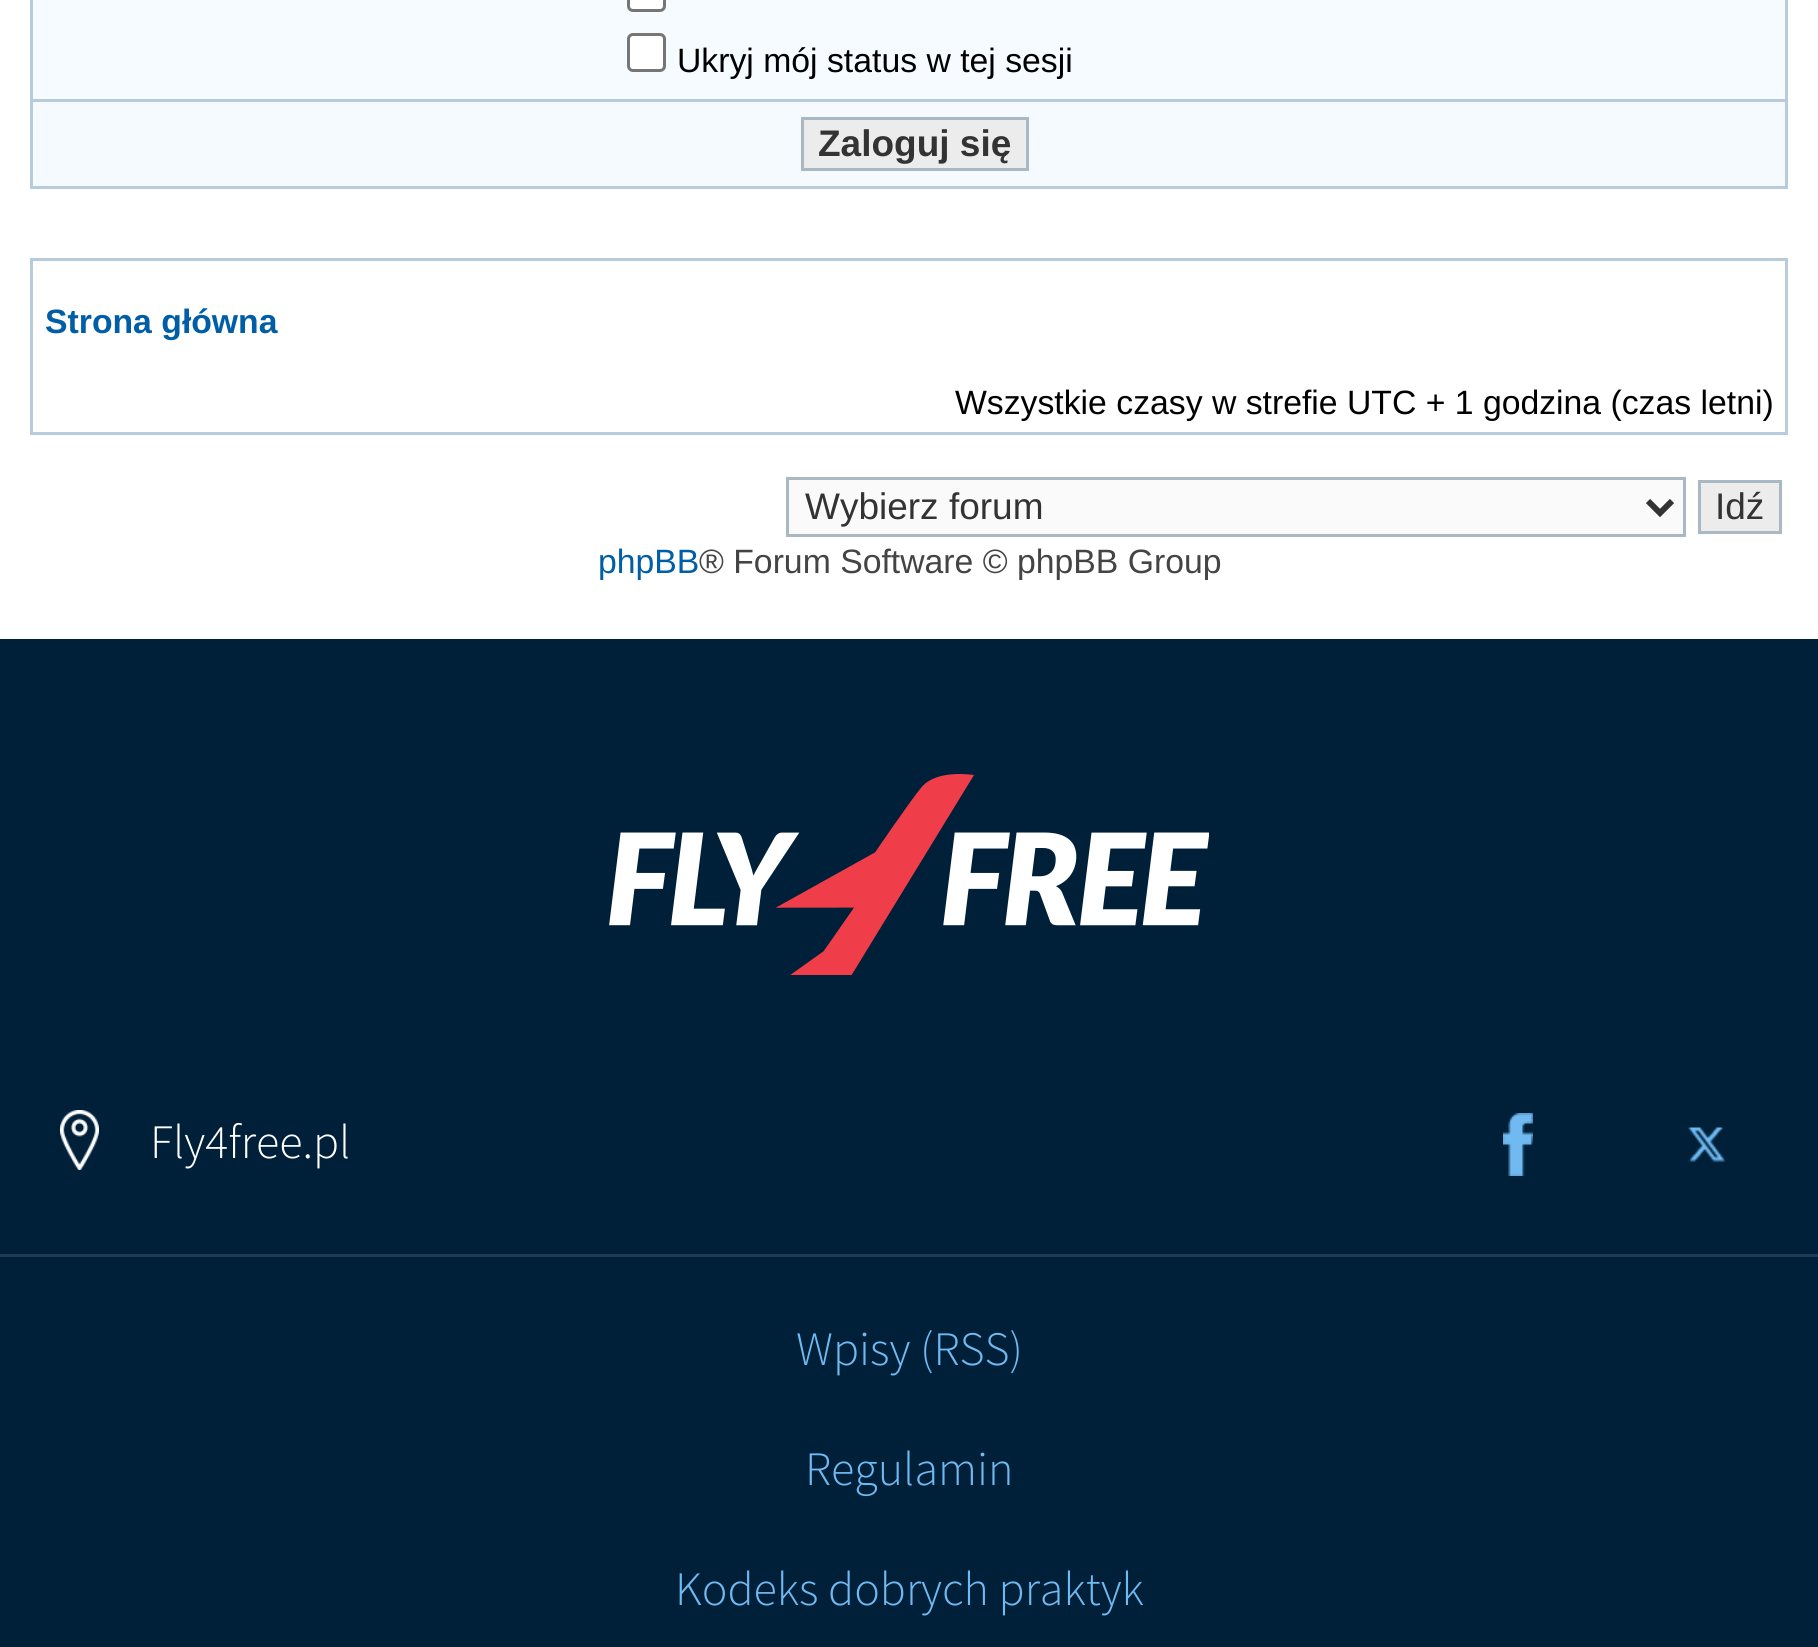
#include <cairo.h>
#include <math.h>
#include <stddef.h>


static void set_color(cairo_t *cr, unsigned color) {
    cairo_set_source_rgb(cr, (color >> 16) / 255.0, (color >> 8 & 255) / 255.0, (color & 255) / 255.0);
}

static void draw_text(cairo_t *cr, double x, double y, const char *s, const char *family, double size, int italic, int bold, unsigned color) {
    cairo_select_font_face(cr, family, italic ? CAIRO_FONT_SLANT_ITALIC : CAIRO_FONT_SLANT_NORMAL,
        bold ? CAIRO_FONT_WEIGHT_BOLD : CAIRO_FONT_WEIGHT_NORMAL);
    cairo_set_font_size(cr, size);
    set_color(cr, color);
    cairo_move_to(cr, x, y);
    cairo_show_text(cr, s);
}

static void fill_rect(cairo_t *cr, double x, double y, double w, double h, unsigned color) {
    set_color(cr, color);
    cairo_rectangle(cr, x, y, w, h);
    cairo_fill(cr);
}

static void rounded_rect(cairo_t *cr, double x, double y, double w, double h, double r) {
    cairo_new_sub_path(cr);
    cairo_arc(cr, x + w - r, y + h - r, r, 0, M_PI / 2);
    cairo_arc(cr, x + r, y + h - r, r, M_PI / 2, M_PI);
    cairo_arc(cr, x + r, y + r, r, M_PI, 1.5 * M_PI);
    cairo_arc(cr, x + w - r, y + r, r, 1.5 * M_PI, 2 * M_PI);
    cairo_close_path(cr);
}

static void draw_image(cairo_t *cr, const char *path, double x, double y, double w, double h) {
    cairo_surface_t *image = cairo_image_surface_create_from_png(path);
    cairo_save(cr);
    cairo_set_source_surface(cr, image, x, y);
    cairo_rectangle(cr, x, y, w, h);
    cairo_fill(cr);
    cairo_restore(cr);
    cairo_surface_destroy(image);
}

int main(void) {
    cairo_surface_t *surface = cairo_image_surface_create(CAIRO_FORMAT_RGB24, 1818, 1647);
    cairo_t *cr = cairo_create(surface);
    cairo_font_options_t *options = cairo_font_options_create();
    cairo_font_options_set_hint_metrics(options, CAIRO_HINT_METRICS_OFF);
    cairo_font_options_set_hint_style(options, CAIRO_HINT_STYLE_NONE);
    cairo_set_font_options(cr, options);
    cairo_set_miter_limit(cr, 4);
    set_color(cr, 0xFFFFFF);
    cairo_paint(cr);
    fill_rect(cr, 30, 0, 1758, 189, 0xB7CBDB);
    fill_rect(cr, 33, 0, 1752, 99, 0xF5FBFF);
    set_color(cr, 0xFFFFFF);
    rounded_rect(cr, 628.5, -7.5, 36, 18, 4.5);
    cairo_fill_preserve(cr);
    set_color(cr, 0x767676);
    cairo_set_line_width(cr, 3);
    cairo_stroke(cr);
    set_color(cr, 0xFFFFFF);
    rounded_rect(cr, 628.5, 34.5, 36, 36, 4.5);
    cairo_fill_preserve(cr);
    set_color(cr, 0x767676);
    cairo_stroke(cr);
    draw_text(cr, 677, 72, "Ukryj mój status w tej sesji", "Liberation Sans", 33.75, 0, 0, 0x000000);
    fill_rect(cr, 33, 102, 1752, 84, 0xF5FAFF);
    set_color(cr, 0xECECEC);
    cairo_rectangle(cr, 802.5, 118.5, 225, 51);
    cairo_fill_preserve(cr);
    set_color(cr, 0xA9B8C2);
    cairo_stroke(cr);
    draw_text(cr, 818, 156, "Zaloguj się", "Liberation Sans", 37, 0, 1, 0x333333);
    fill_rect(cr, 30, 258, 1758, 177, 0xB7CBDB);
    fill_rect(cr, 33, 261, 1752, 171, 0xFFFFFF);
    draw_text(cr, 45, 333, "Strona główna", "Liberation Sans", 33.75, 0, 1, 0x005EA7);
    draw_text(cr, 955, 414, "Wszystkie czasy w strefie UTC + 1 godzina (czas letni)", "Liberation Sans", 33.75, 0, 0, 0x000000);
    set_color(cr, 0xFAFAFA);
    cairo_rectangle(cr, 787.5, 478.5, 897, 57);
    cairo_fill_preserve(cr);
    set_color(cr, 0xA9B8C2);
    cairo_stroke(cr);
    cairo_new_path(cr);
    cairo_move_to(cr, 1648, 501);
    cairo_line_to(cr, 1660, 513);
    cairo_line_to(cr, 1672, 501);
    set_color(cr, 0x333333);
    cairo_set_line_width(cr, 6);
    cairo_stroke(cr);
    draw_text(cr, 805, 519, "Wybierz forum", "Liberation Sans", 37, 0, 0, 0x333333);
    set_color(cr, 0xECECEC);
    cairo_rectangle(cr, 1699.5, 481.5, 81, 51);
    cairo_fill_preserve(cr);
    set_color(cr, 0xA9B8C2);
    cairo_set_line_width(cr, 3);
    cairo_stroke(cr);
    draw_text(cr, 1715, 519, "Idź", "Liberation Sans", 37, 0, 0, 0x333333);
    draw_text(cr, 598, 573, "phpBB", "Liberation Sans", 33.75, 0, 0, 0x005EA7);
    draw_text(cr, 699, 573, "® Forum Software © phpBB Group", "Liberation Sans", 33.75, 0, 0, 0x444444);
    fill_rect(cr, 0, 639, 1818, 1008, 0x002039);
    draw_image(cr, "assets/img1.png", 609, 774, 600, 201);
    draw_image(cr, "assets/img2.png", 60, 1110, 39, 60);
    draw_text(cr, 150, 1158, "Fly4free.pl", "Source Sans Pro Light", 48, 0, 0, 0xFFFFFF);
    draw_image(cr, "assets/img3.png", 1503, 1113, 30, 63);
    draw_image(cr, "assets/img4.png", 1688, 1127, 38, 35);
    fill_rect(cr, 0, 1254, 1818, 3, 0x1F3B51);
    draw_text(cr, 796, 1365, "Wpisy (RSS)", "Source Sans Pro Light", 48, 0, 0, 0x70B9F1);
    draw_text(cr, 805, 1485, "Regulamin", "Source Sans Pro Light", 48, 0, 0, 0x70B9F1);
    draw_text(cr, 675, 1605, "Kodeks dobrych praktyk", "Source Sans Pro Light", 48, 0, 0, 0x70B9F1);
    cairo_surface_write_to_png(surface, "output.png");
    cairo_font_options_destroy(options);
    cairo_destroy(cr);
    cairo_surface_destroy(surface);
    return 0;
}
